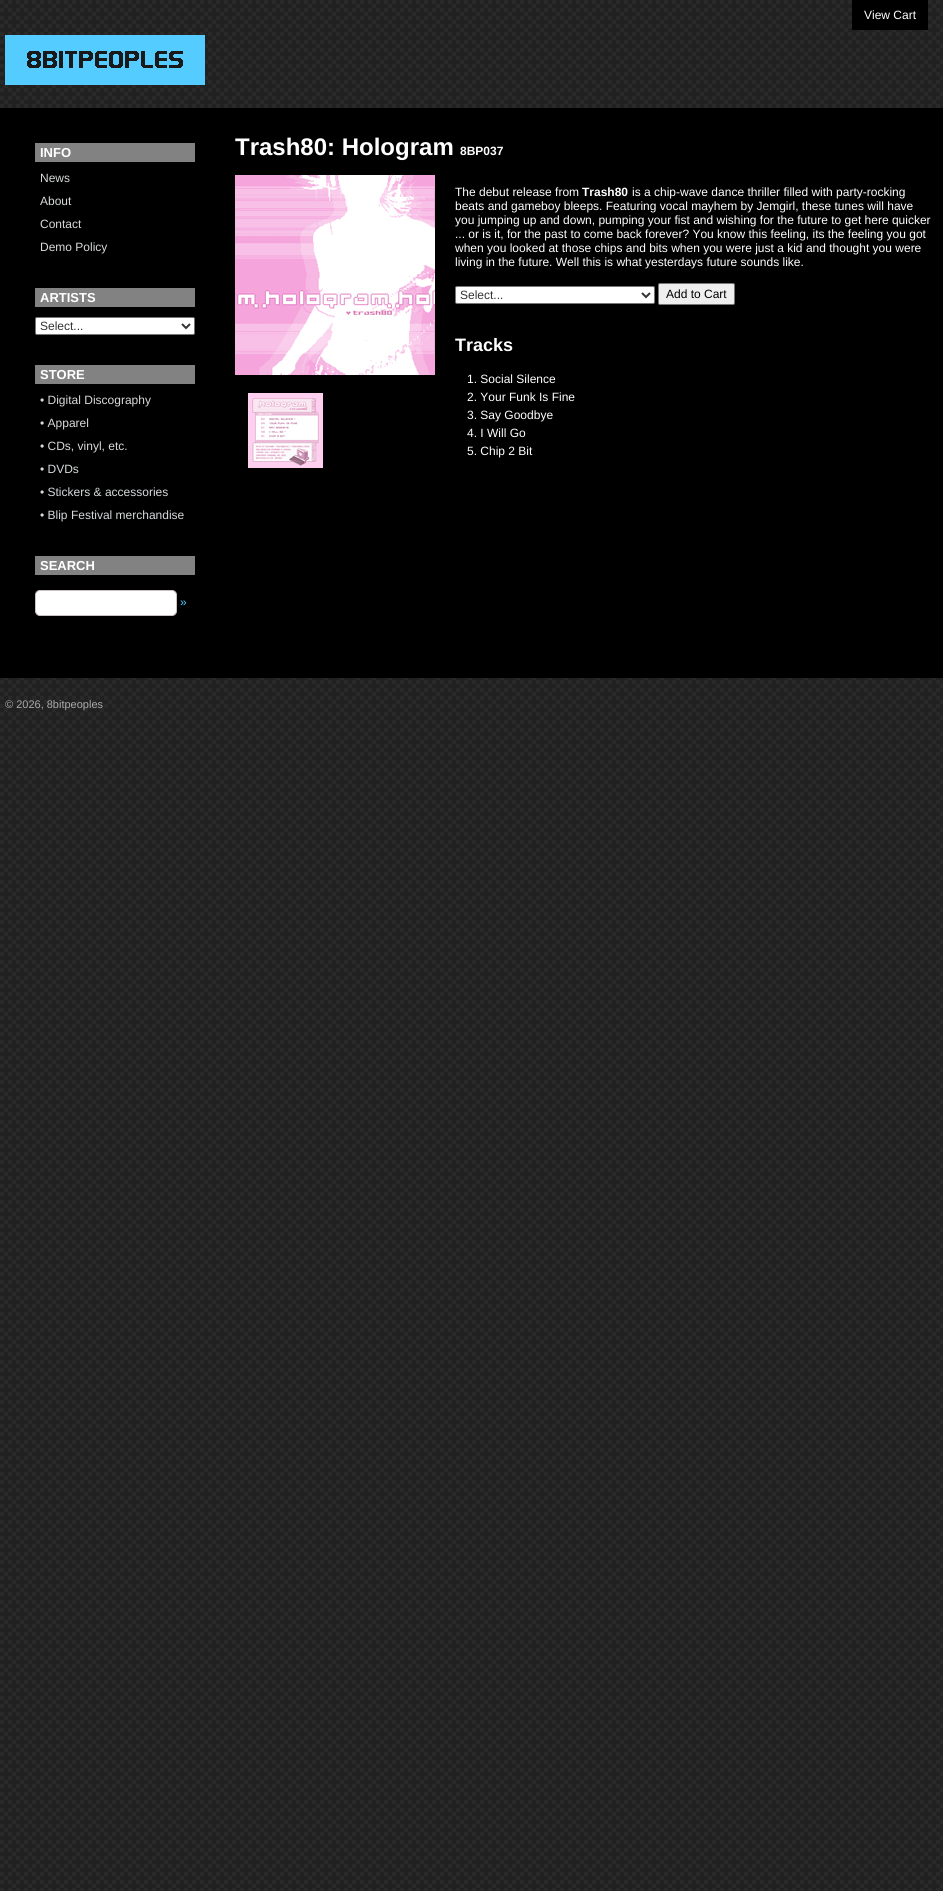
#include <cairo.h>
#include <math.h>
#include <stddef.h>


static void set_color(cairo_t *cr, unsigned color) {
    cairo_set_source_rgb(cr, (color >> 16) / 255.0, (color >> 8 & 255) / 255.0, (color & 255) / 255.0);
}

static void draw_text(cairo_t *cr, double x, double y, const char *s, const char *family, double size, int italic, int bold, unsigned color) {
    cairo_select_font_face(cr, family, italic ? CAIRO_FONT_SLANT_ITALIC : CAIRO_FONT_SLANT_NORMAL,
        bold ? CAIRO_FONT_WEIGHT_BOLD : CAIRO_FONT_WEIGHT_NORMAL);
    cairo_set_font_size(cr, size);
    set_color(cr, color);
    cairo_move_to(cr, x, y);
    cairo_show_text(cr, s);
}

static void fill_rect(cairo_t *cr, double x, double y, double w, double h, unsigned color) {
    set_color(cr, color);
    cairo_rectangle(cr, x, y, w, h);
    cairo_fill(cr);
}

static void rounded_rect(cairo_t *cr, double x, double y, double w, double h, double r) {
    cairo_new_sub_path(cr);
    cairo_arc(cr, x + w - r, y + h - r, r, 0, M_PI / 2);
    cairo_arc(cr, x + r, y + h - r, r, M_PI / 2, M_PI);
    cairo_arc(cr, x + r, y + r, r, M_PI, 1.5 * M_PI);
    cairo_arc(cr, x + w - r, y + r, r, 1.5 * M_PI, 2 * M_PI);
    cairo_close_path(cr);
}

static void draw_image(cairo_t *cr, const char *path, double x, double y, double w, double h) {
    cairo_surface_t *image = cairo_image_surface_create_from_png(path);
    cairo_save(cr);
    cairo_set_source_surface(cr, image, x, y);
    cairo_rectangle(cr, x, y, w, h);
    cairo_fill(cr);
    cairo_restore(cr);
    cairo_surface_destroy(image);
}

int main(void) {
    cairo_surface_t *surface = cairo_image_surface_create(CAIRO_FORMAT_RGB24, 943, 1891);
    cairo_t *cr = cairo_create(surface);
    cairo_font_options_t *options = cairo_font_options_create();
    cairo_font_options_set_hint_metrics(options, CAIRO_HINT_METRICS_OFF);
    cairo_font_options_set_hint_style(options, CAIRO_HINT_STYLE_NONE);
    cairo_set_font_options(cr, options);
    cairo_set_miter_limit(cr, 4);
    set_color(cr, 0xFFFFFF);
    cairo_paint(cr);
    draw_image(cr, "assets/img1.png", 0, 0, 943, 1891);
    fill_rect(cr, 852, 0, 76, 30, 0x000000);
    draw_text(cr, 864, 19, "View Cart", "Liberation Sans", 12, 0, 0, 0xFFFFFF);
    draw_image(cr, "assets/img2.png", 5, 35, 200, 50);
    fill_rect(cr, 0, 108, 943, 570, 0x000000);
    fill_rect(cr, 35, 143, 160, 19, 0x828282);
    draw_text(cr, 40, 157, "INFO", "Liberation Sans", 13, 0, 1, 0xFFFFFF);
    draw_text(cr, 40, 182, "News", "Liberation Sans", 12, 0, 0, 0xD7D9DB);
    draw_text(cr, 40, 205, "About", "Liberation Sans", 12, 0, 0, 0xD7D9DB);
    draw_text(cr, 40, 228, "Contact", "Liberation Sans", 12, 0, 0, 0xD7D9DB);
    draw_text(cr, 40, 251, "Demo Policy", "Liberation Sans", 12, 0, 0, 0xD7D9DB);
    fill_rect(cr, 35, 288, 160, 19, 0x828282);
    draw_text(cr, 40, 302, "ARTISTS", "Liberation Sans", 13, 0, 1, 0xFFFFFF);
    rounded_rect(cr, 35.5, 317.5, 159, 17, 1.5);
    cairo_fill_preserve(cr);
    set_color(cr, 0x767676);
    cairo_set_line_width(cr, 1);
    cairo_stroke(cr);
    cairo_new_path(cr);
    cairo_move_to(cr, 182, 324);
    cairo_line_to(cr, 186, 328);
    cairo_line_to(cr, 190, 324);
    set_color(cr, 0x333333);
    cairo_set_line_width(cr, 2);
    cairo_stroke(cr);
    draw_text(cr, 40, 330, "Select...", "Liberation Sans", 12, 0, 0, 0x333333);
    fill_rect(cr, 35, 365, 160, 19, 0x828282);
    draw_text(cr, 40, 379, "STORE", "Liberation Sans", 13, 0, 1, 0xFFFFFF);
    draw_text(cr, 40, 404, "• Digital Discography", "Liberation Sans", 12, 0, 0, 0xD7D9DB);
    draw_text(cr, 40, 427, "• Apparel", "Liberation Sans", 12, 0, 0, 0xD7D9DB);
    draw_text(cr, 40, 450, "• CDs, vinyl, etc.", "Liberation Sans", 12, 0, 0, 0xD7D9DB);
    draw_text(cr, 40, 473, "• DVDs", "Liberation Sans", 12, 0, 0, 0xD7D9DB);
    draw_text(cr, 40, 496, "• Stickers & accessories", "Liberation Sans", 12, 0, 0, 0xD7D9DB);
    draw_text(cr, 40, 519, "• Blip Festival merchandise", "Liberation Sans", 12, 0, 0, 0xD7D9DB);
    fill_rect(cr, 35, 556, 160, 19, 0x828282);
    draw_text(cr, 40, 570, "SEARCH", "Liberation Sans", 13, 0, 1, 0xFFFFFF);
    rounded_rect(cr, 35.5, 590.5, 141, 25, 4.5);
    cairo_fill_preserve(cr);
    set_color(cr, 0xC9C2C1);
    cairo_set_line_width(cr, 1);
    cairo_stroke(cr);
    draw_text(cr, 180, 606, "»", "Liberation Sans", 12, 0, 0, 0x54CCFF);
    draw_text(cr, 235, 155, "Trash80: Hologram", "Liberation Sans", 24, 0, 1, 0xFFFFFF);
    draw_text(cr, 460, 155, "8BP037", "Liberation Sans", 12, 0, 1, 0xFFFFFF);
    draw_image(cr, "assets/img3.png", 235, 175, 200, 200);
    draw_image(cr, "assets/img4.png", 248, 393, 75, 75);
    draw_text(cr, 455, 196, "The debut release from", "Liberation Sans", 12, 0, 0, 0xFFFFFF);
    draw_text(cr, 582, 196, "Trash80", "Liberation Sans", 12, 0, 1, 0xFFFFFF);
    draw_text(cr, 632, 196, "is a chip-wave dance thriller filled with party-rocking", "Liberation Sans", 12, 0, 0, 0xFFFFFF);
    draw_text(cr, 455, 210, "beats and gameboy bleeps. Featuring vocal mayhem by Jemgirl, these tunes will have", "Liberation Sans", 12, 0, 0, 0xFFFFFF);
    draw_text(cr, 455, 224, "you jumping up and down, pumping your fist and wishing for the future to get here quicker", "Liberation Sans", 12, 0, 0, 0xFFFFFF);
    draw_text(cr, 455, 238, "... or is it, for the past to come back forever? You know this feeling, its the feeling you got", "Liberation Sans", 12, 0, 0, 0xFFFFFF);
    draw_text(cr, 455, 252, "when you looked at those chips and bits when you were just a kid and thought you were", "Liberation Sans", 12, 0, 0, 0xFFFFFF);
    draw_text(cr, 455, 266, "living in the future. Well this is what yesterdays future sounds like.", "Liberation Sans", 12, 0, 0, 0xFFFFFF);
    rounded_rect(cr, 455.5, 286.5, 199, 17, 1.5);
    cairo_fill_preserve(cr);
    set_color(cr, 0x767676);
    cairo_stroke(cr);
    cairo_new_path(cr);
    cairo_move_to(cr, 642, 293);
    cairo_line_to(cr, 646, 297);
    cairo_line_to(cr, 650, 293);
    set_color(cr, 0x333333);
    cairo_set_line_width(cr, 2);
    cairo_stroke(cr);
    draw_text(cr, 460, 299, "Select...", "Liberation Sans", 12, 0, 0, 0x333333);
    set_color(cr, 0xEFEFEF);
    rounded_rect(cr, 658.5, 283.5, 76, 21, 1.5);
    cairo_fill_preserve(cr);
    set_color(cr, 0x767676);
    cairo_set_line_width(cr, 1);
    cairo_stroke(cr);
    draw_text(cr, 666, 298, "Add to Cart", "Liberation Sans", 12, 0, 0, 0x000000);
    draw_text(cr, 455, 351, "Tracks", "Liberation Sans", 18, 0, 1, 0xFFFFFF);
    draw_text(cr, 467, 383, "1. Social Silence", "Liberation Sans", 12, 0, 0, 0xFFFFFF);
    draw_text(cr, 467, 401, "2. Your Funk Is Fine", "Liberation Sans", 12, 0, 0, 0xFFFFFF);
    draw_text(cr, 467, 419, "3. Say Goodbye", "Liberation Sans", 12, 0, 0, 0xFFFFFF);
    draw_text(cr, 467, 437, "4. I Will Go", "Liberation Sans", 12, 0, 0, 0xFFFFFF);
    draw_text(cr, 467, 455, "5. Chip 2 Bit", "Liberation Sans", 12, 0, 0, 0xFFFFFF);
    draw_text(cr, 5, 708, "© 2026, 8bitpeoples", "Liberation Sans", 11, 0, 0, 0xAAAAAA);
    cairo_surface_write_to_png(surface, "output.png");
    cairo_font_options_destroy(options);
    cairo_destroy(cr);
    cairo_surface_destroy(surface);
    return 0;
}
